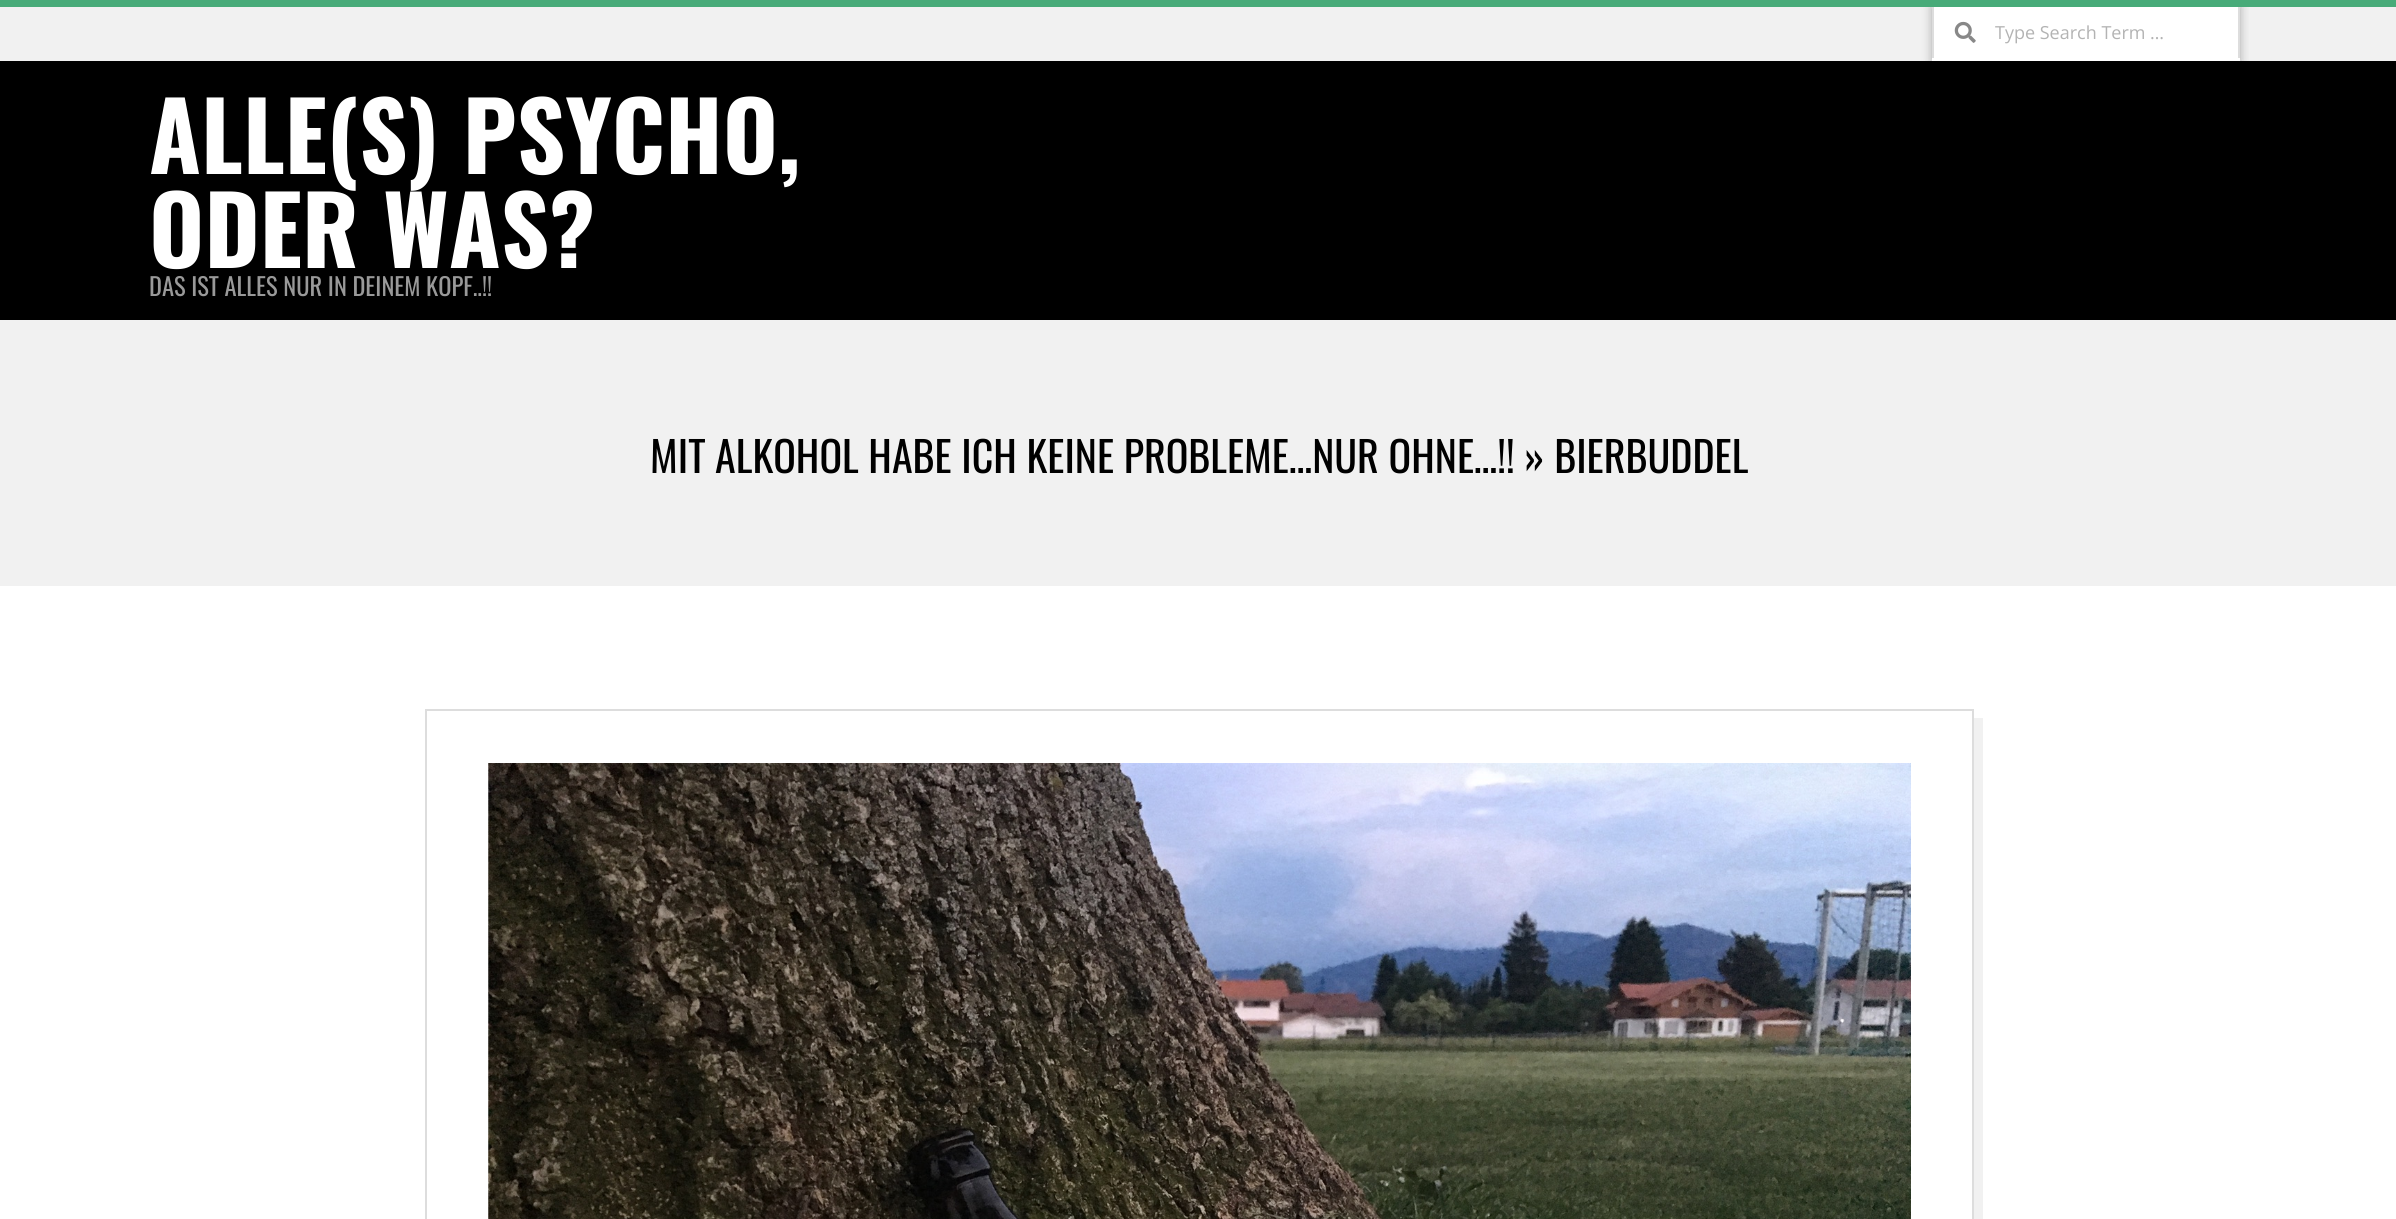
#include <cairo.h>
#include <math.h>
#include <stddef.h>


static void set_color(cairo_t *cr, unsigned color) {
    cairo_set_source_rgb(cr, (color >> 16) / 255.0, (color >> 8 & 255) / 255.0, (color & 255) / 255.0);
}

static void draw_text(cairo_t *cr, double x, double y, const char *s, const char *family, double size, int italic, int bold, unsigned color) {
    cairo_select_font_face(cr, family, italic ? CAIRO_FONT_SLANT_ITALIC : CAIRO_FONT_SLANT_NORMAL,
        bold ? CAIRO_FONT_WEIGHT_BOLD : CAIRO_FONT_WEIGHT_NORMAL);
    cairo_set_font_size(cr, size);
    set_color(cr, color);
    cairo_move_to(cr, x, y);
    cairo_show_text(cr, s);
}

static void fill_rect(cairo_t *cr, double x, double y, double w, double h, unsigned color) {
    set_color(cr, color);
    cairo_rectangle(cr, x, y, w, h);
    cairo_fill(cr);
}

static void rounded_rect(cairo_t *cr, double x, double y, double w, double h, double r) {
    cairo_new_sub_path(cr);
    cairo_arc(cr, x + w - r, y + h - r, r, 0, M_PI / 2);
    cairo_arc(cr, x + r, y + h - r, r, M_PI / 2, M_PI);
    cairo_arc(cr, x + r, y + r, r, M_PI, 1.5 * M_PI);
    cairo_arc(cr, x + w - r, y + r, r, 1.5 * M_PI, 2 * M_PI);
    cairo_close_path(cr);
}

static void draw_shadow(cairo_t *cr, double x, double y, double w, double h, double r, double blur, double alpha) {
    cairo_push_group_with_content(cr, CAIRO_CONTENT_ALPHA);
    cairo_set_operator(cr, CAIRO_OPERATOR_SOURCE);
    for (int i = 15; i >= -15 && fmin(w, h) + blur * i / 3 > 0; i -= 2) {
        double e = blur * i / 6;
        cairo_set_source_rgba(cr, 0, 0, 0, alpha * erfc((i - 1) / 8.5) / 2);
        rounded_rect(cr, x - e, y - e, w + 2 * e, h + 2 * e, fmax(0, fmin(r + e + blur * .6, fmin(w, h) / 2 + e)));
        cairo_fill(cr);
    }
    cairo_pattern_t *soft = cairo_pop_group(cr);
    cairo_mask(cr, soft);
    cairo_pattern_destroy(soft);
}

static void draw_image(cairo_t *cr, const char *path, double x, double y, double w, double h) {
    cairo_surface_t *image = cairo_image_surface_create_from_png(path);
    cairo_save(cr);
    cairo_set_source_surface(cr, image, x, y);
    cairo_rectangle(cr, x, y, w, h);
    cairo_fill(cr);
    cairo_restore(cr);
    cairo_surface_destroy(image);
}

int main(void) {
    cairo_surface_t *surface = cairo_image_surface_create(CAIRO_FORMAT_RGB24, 2396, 1219);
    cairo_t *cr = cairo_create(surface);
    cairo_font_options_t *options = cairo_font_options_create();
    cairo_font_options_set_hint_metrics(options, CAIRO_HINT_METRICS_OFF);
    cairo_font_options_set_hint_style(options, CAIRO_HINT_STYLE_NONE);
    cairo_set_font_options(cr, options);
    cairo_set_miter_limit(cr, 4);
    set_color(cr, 0xFFFFFF);
    cairo_paint(cr);
    fill_rect(cr, 0, 0, 2396, 7, 0x48AB79);
    fill_rect(cr, 0, 7, 2396, 54, 0xF1F1F1);
    cairo_save(cr);
    cairo_rectangle(cr, 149, 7, 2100, 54);
    cairo_clip(cr);
    set_color(cr, 0x000000);
    draw_shadow(cr, 1932, 7, 308, 54, 0, 5, 0.3);
    cairo_restore(cr);
    fill_rect(cr, 1932, 7, 308, 54, 0xFFFFFF);
    draw_image(cr, "assets/img1.png", 1954, 21, 22, 22);
    fill_rect(cr, 2238, 7, 2, 51, 0xDDDDDD);
    fill_rect(cr, 1932, 7, 2, 51, 0xDDDDDD);
    draw_text(cr, 1995, 39, "Type Search Term …", "Open Sans", 18, 0, 0, 0xB3B3B3);
    fill_rect(cr, 0, 61, 2396, 259, 0x000000);
    draw_text(cr, 149, 174, "ALLE(S) PSYCHO,", "Oswald", 94.5, 0, 1, 0xFFFFFF);
    draw_text(cr, 149, 268, "ODER WAS?", "Oswald", 94.5, 0, 1, 0xFFFFFF);
    draw_text(cr, 149, 296, "DAS IST ALLES NUR IN DEINEM KOPF..!!", "Oswald", 24.5, 0, 0, 0x999999);
    fill_rect(cr, 0, 320, 2396, 266, 0xF1F1F1);
    draw_text(cr, 650, 473, "MIT ALKOHOL HABE ICH KEINE PROBLEME…NUR OHNE…!! » BIERBUDDEL", "Oswald", 42, 0, 0, 0x000000);
    set_color(cr, 0xF1F1F1);
    cairo_new_path(cr);
    cairo_move_to(cr, 434, 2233);
    cairo_line_to(cr, 434, 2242);
    cairo_line_to(cr, 1983, 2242);
    cairo_line_to(cr, 1983, 718);
    cairo_line_to(cr, 1974, 718);
    cairo_line_to(cr, 1974, 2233);
    cairo_close_path(cr);
    cairo_fill(cr);
    cairo_rectangle(cr, 426, 710, 1547, 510);
    set_color(cr, 0xDDDDDD);
    cairo_stroke(cr);
    draw_image(cr, "assets/img2.png", 488, 763, 1423, 456);
    cairo_surface_write_to_png(surface, "output.png");
    cairo_font_options_destroy(options);
    cairo_destroy(cr);
    cairo_surface_destroy(surface);
    return 0;
}
